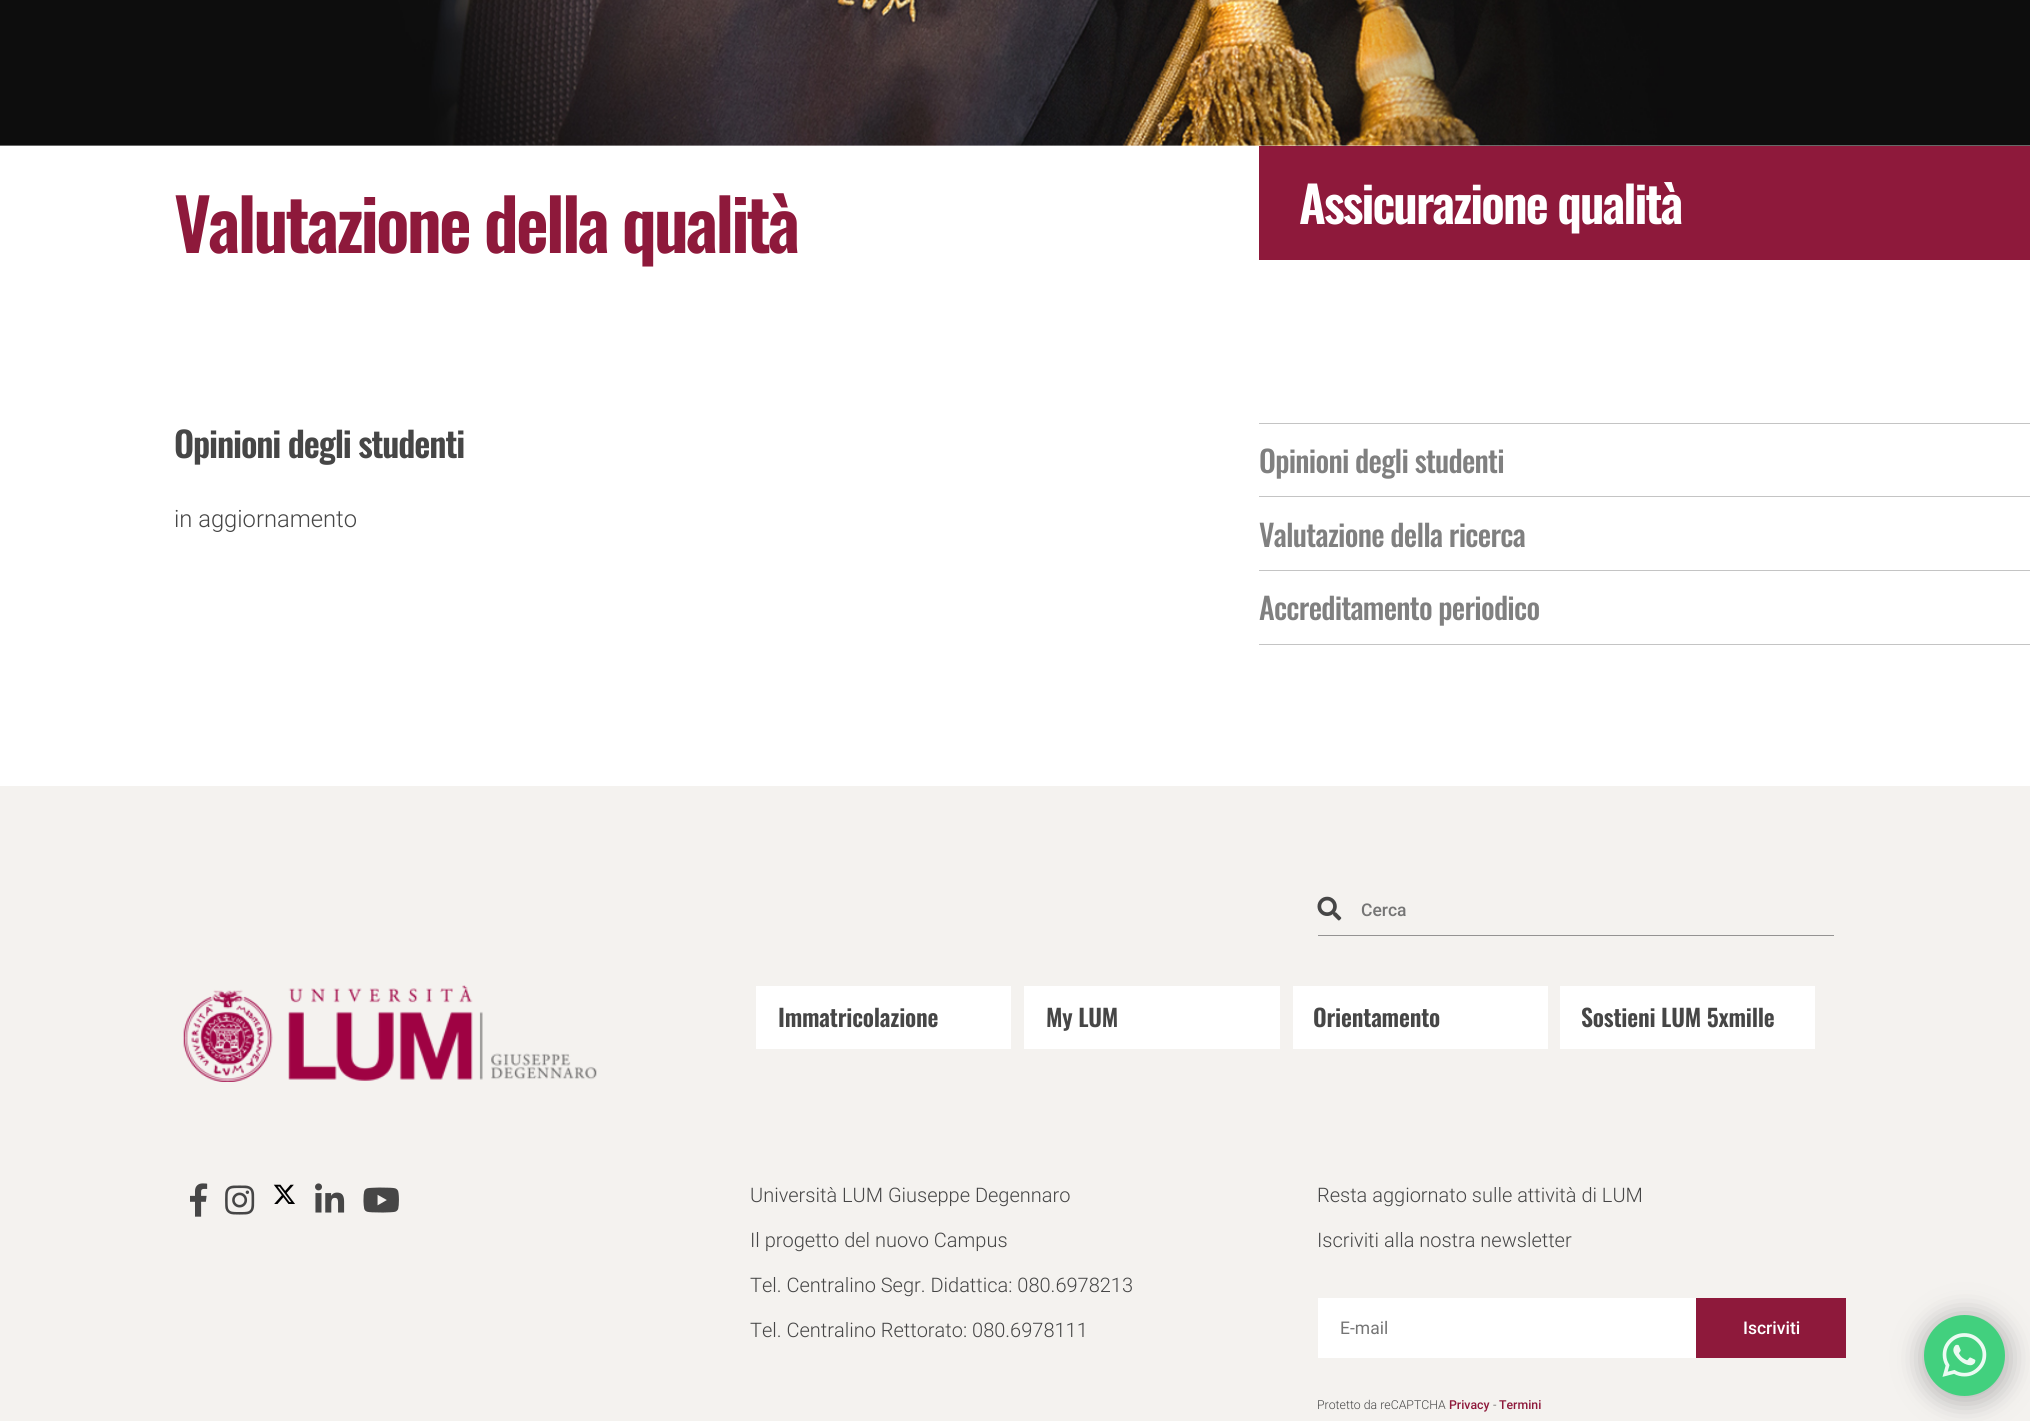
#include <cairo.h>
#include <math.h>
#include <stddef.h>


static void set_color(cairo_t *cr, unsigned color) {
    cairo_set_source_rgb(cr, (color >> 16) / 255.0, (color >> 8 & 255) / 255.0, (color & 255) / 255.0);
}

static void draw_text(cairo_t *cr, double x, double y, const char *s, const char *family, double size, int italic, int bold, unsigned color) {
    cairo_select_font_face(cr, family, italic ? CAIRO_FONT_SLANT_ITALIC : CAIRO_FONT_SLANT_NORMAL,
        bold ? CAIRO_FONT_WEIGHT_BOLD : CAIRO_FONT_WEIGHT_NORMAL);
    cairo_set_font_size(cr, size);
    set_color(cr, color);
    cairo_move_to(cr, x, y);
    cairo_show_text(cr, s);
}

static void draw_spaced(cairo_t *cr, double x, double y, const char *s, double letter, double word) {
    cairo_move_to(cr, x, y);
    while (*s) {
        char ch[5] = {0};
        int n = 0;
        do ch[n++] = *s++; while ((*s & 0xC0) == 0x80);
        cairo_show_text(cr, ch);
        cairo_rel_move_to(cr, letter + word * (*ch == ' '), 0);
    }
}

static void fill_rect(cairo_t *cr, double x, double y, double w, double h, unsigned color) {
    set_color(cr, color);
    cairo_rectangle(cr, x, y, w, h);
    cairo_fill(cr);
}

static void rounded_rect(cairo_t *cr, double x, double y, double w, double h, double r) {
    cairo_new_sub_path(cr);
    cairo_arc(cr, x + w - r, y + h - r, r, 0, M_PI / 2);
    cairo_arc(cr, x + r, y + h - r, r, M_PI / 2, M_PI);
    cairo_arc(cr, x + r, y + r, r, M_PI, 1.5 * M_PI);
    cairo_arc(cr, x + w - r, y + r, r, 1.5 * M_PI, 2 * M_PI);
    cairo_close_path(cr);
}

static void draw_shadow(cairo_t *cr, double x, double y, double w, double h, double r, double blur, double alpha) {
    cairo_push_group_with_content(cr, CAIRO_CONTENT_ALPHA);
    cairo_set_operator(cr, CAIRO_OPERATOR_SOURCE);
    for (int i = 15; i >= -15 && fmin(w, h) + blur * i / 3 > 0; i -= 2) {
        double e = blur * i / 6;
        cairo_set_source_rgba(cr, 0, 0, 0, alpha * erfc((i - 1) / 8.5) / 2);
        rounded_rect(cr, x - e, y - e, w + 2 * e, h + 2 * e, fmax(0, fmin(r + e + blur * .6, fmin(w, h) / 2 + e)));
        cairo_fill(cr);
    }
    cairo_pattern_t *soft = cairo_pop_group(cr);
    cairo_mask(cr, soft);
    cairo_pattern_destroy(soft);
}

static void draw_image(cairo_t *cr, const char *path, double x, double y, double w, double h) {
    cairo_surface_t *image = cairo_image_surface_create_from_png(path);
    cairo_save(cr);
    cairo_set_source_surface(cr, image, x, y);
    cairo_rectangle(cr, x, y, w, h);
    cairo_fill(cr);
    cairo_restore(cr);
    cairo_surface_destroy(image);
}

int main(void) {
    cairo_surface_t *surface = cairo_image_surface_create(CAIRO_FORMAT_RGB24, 2030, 1421);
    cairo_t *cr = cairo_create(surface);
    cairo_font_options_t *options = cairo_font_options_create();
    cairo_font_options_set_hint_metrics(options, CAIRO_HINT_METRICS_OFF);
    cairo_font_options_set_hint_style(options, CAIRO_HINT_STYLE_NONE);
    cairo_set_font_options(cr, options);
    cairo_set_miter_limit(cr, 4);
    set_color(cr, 0xFFFFFF);
    cairo_paint(cr);
    draw_image(cr, "assets/img1.png", 0, 0, 2030, 146);
    cairo_select_font_face(cr, "Oswald SemiBold", CAIRO_FONT_SLANT_NORMAL, CAIRO_FONT_WEIGHT_NORMAL);
    cairo_set_font_size(cr, 71.25);
    set_color(cr, 0x8E193B);
    draw_spaced(cr, 174, 253, "Valutazione della qualità", -2.85, 0);
    fill_rect(cr, 1259, 146, 771, 114, 0x8E193B);
    cairo_set_font_size(cr, 50);
    set_color(cr, 0xFFFFFF);
    draw_spaced(cr, 1299, 224, "Assicurazione qualità", -1.9, 0);
    cairo_set_font_size(cr, 35);
    set_color(cr, 0x464646);
    draw_spaced(cr, 174, 458, "Opinioni degli studenti", -1.15, 0);
    draw_text(cr, 174, 527, "in aggiornamento", "Roboto Light", 23.75, 0, 0, 0x464646);
    fill_rect(cr, 1259, 423, 771, 1, 0xC4C4C4);
    fill_rect(cr, 1259, 496, 771, 1, 0xC4C4C4);
    cairo_select_font_face(cr, "Oswald Medium", CAIRO_FONT_SLANT_NORMAL, CAIRO_FONT_WEIGHT_NORMAL);
    cairo_set_font_size(cr, 30);
    set_color(cr, 0x808080);
    draw_spaced(cr, 1259, 473, "Opinioni degli studenti", -0.75, 0);
    fill_rect(cr, 1259, 570, 771, 1, 0xC4C4C4);
    set_color(cr, 0x808080);
    draw_spaced(cr, 1259, 547, "Valutazione della ricerca", -0.75, 0);
    fill_rect(cr, 1259, 644, 771, 1, 0xC4C4C4);
    set_color(cr, 0x808080);
    draw_spaced(cr, 1259, 620, "Accreditamento periodico", -0.75, 0);
    fill_rect(cr, 0, 786, 2030, 635, 0xF4F2EF);
    draw_image(cr, "assets/img2.png", 1317, 896, 25, 25);
    fill_rect(cr, 1318, 935, 516, 1, 0x949392);
    draw_text(cr, 1361, 916, "Cerca", "Roboto Medium", 17.5, 0, 0, 0x757575);
    draw_image(cr, "assets/img3.png", 183, 985, 414, 97);
    draw_image(cr, "assets/img4.png", 190, 1183, 18, 34);
    draw_image(cr, "assets/img5.png", 225, 1185, 30, 30);
    draw_image(cr, "assets/img6.png", 273, 1184, 22, 20);
    draw_image(cr, "assets/img7.png", 315, 1183, 30, 30);
    draw_image(cr, "assets/img8.png", 363, 1187, 36, 26);
    fill_rect(cr, 756, 986, 255, 63, 0xFFFFFF);
    cairo_select_font_face(cr, "Oswald SemiBold", CAIRO_FONT_SLANT_NORMAL, CAIRO_FONT_WEIGHT_NORMAL);
    cairo_set_font_size(cr, 23.75);
    set_color(cr, 0x464646);
    draw_spaced(cr, 778, 1027, "Immatricolazione", -0.2, 0);
    fill_rect(cr, 1024, 986, 256, 63, 0xFFFFFF);
    set_color(cr, 0x464646);
    draw_spaced(cr, 1046, 1027, "My LUM", -0.2, 0);
    fill_rect(cr, 1293, 986, 255, 63, 0xFFFFFF);
    set_color(cr, 0x464646);
    draw_spaced(cr, 1313, 1027, "Orientamento", -0.2, 0);
    fill_rect(cr, 1560, 986, 255, 63, 0xFFFFFF);
    set_color(cr, 0x464646);
    draw_spaced(cr, 1581, 1027, "Sostieni LUM 5xmille", -0.2, 0);
    draw_text(cr, 750, 1202, "Università LUM Giuseppe Degennaro", "Roboto Light", 20, 0, 0, 0x464646);
    draw_text(cr, 750, 1247, "Il progetto del nuovo Campus", "Roboto Light", 20, 0, 0, 0x464646);
    draw_text(cr, 750, 1292, "Tel. Centralino Segr. Didattica: 080.6978213", "Roboto Light", 20, 0, 0, 0x464646);
    draw_text(cr, 750, 1337, "Tel. Centralino Rettorato: 080.6978111", "Roboto Light", 20, 0, 0, 0x464646);
    draw_text(cr, 1317, 1202, "Resta aggiornato sulle attività di LUM", "Roboto Light", 20, 0, 0, 0x464646);
    draw_text(cr, 1317, 1247, "Iscriviti alla nostra newsletter", "Roboto Light", 20, 0, 0, 0x464646);
    fill_rect(cr, 1318, 1298, 378, 60, 0xFFFFFF);
    draw_text(cr, 1340, 1334, "E-mail", "Roboto", 17.5, 0, 0, 0x757575);
    fill_rect(cr, 1696, 1298, 150, 60, 0x8E193B);
    draw_text(cr, 1743, 1334, "Iscriviti", "Roboto Medium", 17.5, 0, 0, 0xFFFFFF);
    draw_text(cr, 1317, 1409, "Protetto da reCAPTCHA", "Roboto Light", 12.3, 0, 0, 0x464646);
    draw_text(cr, 1449, 1409, "Privacy", "Roboto Medium", 12.3, 0, 0, 0x8E193B);
    draw_text(cr, 1493, 1409, "-", "Roboto Light", 12.3, 0, 0, 0x464646);
    draw_text(cr, 1499, 1409, "Termini", "Roboto Medium", 12.3, 0, 0, 0x8E193B);
    set_color(cr, 0xB9B8B8);
    draw_shadow(cr, 1920, 1313, 91, 91, 45.5, 12.5, 1);
    set_color(cr, 0x42D07E);
    cairo_arc(cr, 1964.5, 1355.5, 40.5, 0, 2 * M_PI);
    cairo_fill(cr);
    draw_image(cr, "assets/img9.png", 1942, 1333, 45, 44);
    cairo_surface_write_to_png(surface, "output.png");
    cairo_font_options_destroy(options);
    cairo_destroy(cr);
    cairo_surface_destroy(surface);
    return 0;
}
